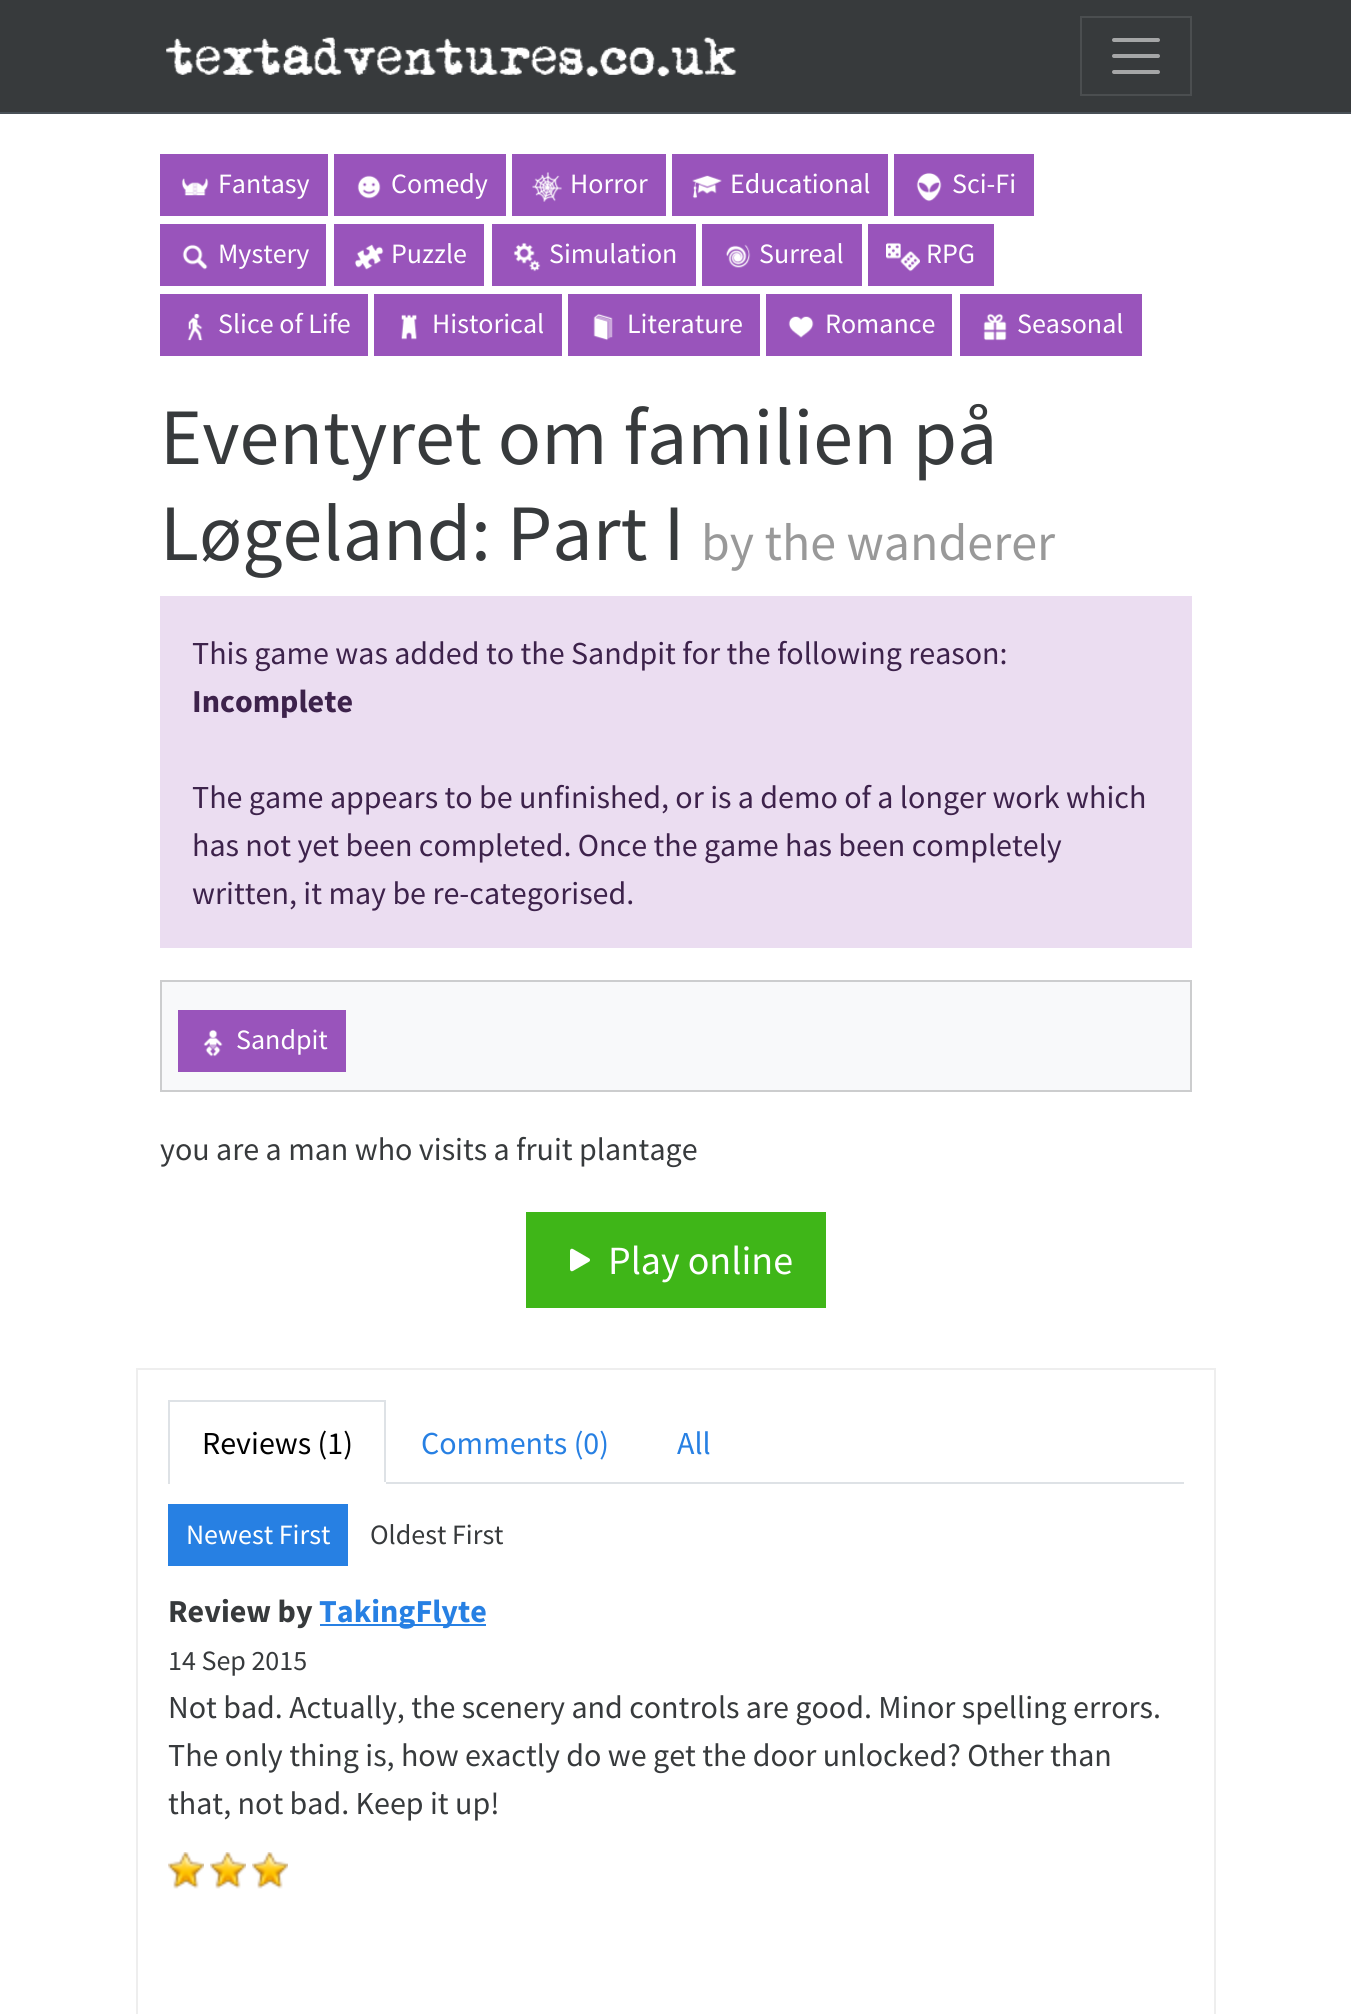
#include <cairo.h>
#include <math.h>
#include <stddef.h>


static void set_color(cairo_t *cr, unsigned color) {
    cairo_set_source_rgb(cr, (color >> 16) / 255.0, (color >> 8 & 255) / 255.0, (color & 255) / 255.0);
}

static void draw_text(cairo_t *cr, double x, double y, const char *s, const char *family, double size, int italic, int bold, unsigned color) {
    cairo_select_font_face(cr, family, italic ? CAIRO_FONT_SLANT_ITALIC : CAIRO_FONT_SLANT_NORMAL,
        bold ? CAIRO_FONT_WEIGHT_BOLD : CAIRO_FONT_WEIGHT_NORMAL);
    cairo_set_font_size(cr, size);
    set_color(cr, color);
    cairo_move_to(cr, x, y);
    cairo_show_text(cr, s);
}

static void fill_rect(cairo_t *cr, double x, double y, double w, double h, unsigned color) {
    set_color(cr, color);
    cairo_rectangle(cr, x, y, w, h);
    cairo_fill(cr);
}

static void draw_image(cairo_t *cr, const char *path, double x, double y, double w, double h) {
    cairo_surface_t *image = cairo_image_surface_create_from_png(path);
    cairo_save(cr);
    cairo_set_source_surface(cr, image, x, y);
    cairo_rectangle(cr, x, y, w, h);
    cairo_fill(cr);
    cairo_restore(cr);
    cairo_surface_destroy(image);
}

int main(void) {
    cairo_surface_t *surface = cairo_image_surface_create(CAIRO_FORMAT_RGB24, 1351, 2014);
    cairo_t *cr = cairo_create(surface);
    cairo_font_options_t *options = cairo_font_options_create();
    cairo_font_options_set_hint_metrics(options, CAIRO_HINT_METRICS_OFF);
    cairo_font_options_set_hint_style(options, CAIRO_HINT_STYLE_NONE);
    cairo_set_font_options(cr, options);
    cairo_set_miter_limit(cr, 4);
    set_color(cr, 0xFFFFFF);
    cairo_paint(cr);
    fill_rect(cr, 0, 0, 1351, 112, 0x373A3C);
    fill_rect(cr, 0, 112, 1351, 2, 0x495057);
    draw_image(cr, "assets/img1.png", 166, 37, 571, 40);
    cairo_rectangle(cr, 1081, 17, 110, 78);
    set_color(cr, 0x4B4E50);
    cairo_stroke(cr);
    cairo_new_path(cr);
    cairo_move_to(cr, 1114, 40);
    cairo_line_to(cr, 1158, 40);
    cairo_move_to(cr, 1114, 56);
    cairo_line_to(cr, 1158, 56);
    cairo_move_to(cr, 1114, 72);
    cairo_line_to(cr, 1158, 72);
    set_color(cr, 0xA5A6A7);
    cairo_set_line_width(cr, 4);
    cairo_set_line_cap(cr, CAIRO_LINE_CAP_ROUND);
    cairo_stroke(cr);
    fill_rect(cr, 160, 154, 168, 62, 0x9954BB);
    draw_image(cr, "assets/img2.png", 181, 178, 28, 18);
    draw_text(cr, 218, 193, "Fantasy", "Source Sans Pro", 28, 0, 0, 0xFFFFFF);
    fill_rect(cr, 334, 154, 172, 62, 0x9954BB);
    draw_image(cr, "assets/img3.png", 357, 175, 24, 24);
    draw_text(cr, 391, 193, "Comedy", "Source Sans Pro", 28, 0, 0, 0xFFFFFF);
    fill_rect(cr, 512, 154, 154, 62, 0x9954BB);
    draw_image(cr, "assets/img4.png", 532, 172, 30, 30);
    draw_text(cr, 570, 193, "Horror", "Source Sans Pro", 28, 0, 0, 0xFFFFFF);
    fill_rect(cr, 672, 154, 216, 62, 0x9954BB);
    draw_image(cr, "assets/img5.png", 692, 175, 30, 24);
    draw_text(cr, 730, 193, "Educational", "Source Sans Pro", 28, 0, 0, 0xFFFFFF);
    fill_rect(cr, 894, 154, 140, 62, 0x9954BB);
    draw_image(cr, "assets/img6.png", 916, 172, 26, 30);
    draw_text(cr, 952, 193, "Sci-Fi", "Source Sans Pro", 28, 0, 0, 0xFFFFFF);
    fill_rect(cr, 160, 224, 166, 62, 0x9954BB);
    draw_image(cr, "assets/img7.png", 182, 244, 26, 26);
    draw_text(cr, 218, 263, "Mystery", "Source Sans Pro", 28, 0, 0, 0xFFFFFF);
    fill_rect(cr, 334, 224, 150, 62, 0x9954BB);
    draw_image(cr, "assets/img8.png", 354, 244, 30, 26);
    draw_text(cr, 391, 263, "Puzzle", "Source Sans Pro", 28, 0, 0, 0xFFFFFF);
    fill_rect(cr, 492, 224, 204, 62, 0x9954BB);
    draw_image(cr, "assets/img9.png", 513, 242, 28, 30);
    draw_text(cr, 549, 263, "Simulation", "Source Sans Pro", 28, 0, 0, 0xFFFFFF);
    fill_rect(cr, 702, 224, 160, 62, 0x9954BB);
    draw_image(cr, "assets/img10.png", 726, 244, 25, 24);
    draw_text(cr, 759, 263, "Surreal", "Source Sans Pro", 28, 0, 0, 0xFFFFFF);
    fill_rect(cr, 868, 224, 126, 62, 0x9954BB);
    draw_image(cr, "assets/img11.png", 886, 242, 34, 30);
    draw_text(cr, 926, 263, "RPG", "Source Sans Pro", 28, 0, 0, 0xFFFFFF);
    fill_rect(cr, 160, 294, 208, 62, 0x9954BB);
    draw_image(cr, "assets/img12.png", 187, 313, 16, 28);
    draw_text(cr, 218, 333, "Slice of Life", "Source Sans Pro", 28, 0, 0, 0xFFFFFF);
    fill_rect(cr, 374, 294, 188, 62, 0x9954BB);
    draw_image(cr, "assets/img13.png", 401, 314, 16, 26);
    draw_text(cr, 432, 333, "Historical", "Source Sans Pro", 28, 0, 0, 0xFFFFFF);
    fill_rect(cr, 568, 294, 192, 62, 0x9954BB);
    draw_image(cr, "assets/img14.png", 593, 313, 20, 28);
    draw_text(cr, 627, 333, "Literature", "Source Sans Pro", 28, 0, 0, 0xFFFFFF);
    fill_rect(cr, 766, 294, 186, 62, 0x9954BB);
    draw_image(cr, "assets/img15.png", 788, 316, 26, 22);
    draw_text(cr, 825, 333, "Romance", "Source Sans Pro", 28, 0, 0, 0xFFFFFF);
    fill_rect(cr, 960, 294, 182, 62, 0x9954BB);
    draw_image(cr, "assets/img16.png", 983, 313, 24, 28);
    draw_text(cr, 1017, 333, "Seasonal", "Source Sans Pro", 28, 0, 0, 0xFFFFFF);
    draw_text(cr, 160, 464, "Eventyret om familien på", "Source Sans Pro", 80, 0, 0, 0x373A3C);
    draw_text(cr, 160, 560, "Løgeland: Part I", "Source Sans Pro", 80, 0, 0, 0x373A3C);
    draw_text(cr, 701, 560, "by the wanderer", "Source Sans Pro", 52, 0, 0, 0x999999);
    fill_rect(cr, 160, 596, 1032, 352, 0xEBDDF1);
    draw_text(cr, 192, 664, "This game was added to the Sandpit for the following reason:", "Source Sans Pro", 32, 0, 0, 0x3D224B);
    draw_text(cr, 192, 712, "Incomplete", "Source Sans Pro", 32, 0, 1, 0x3D224B);
    draw_text(cr, 192, 808, "The game appears to be unfinished, or is a demo of a longer work which", "Source Sans Pro", 32, 0, 0, 0x3D224B);
    draw_text(cr, 192, 856, "has not yet been completed. Once the game has been completely", "Source Sans Pro", 32, 0, 0, 0x3D224B);
    draw_text(cr, 192, 904, "written, it may be re-categorised.", "Source Sans Pro", 32, 0, 0, 0x3D224B);
    set_color(cr, 0xF8F9FA);
    cairo_rectangle(cr, 161, 981, 1030, 110);
    cairo_fill_preserve(cr);
    set_color(cr, 0xCCCDCE);
    cairo_set_line_width(cr, 2);
    cairo_set_line_cap(cr, CAIRO_LINE_CAP_BUTT);
    cairo_stroke(cr);
    fill_rect(cr, 178, 1010, 168, 62, 0x9954BB);
    draw_image(cr, "assets/img17.png", 203, 1029, 20, 28);
    draw_text(cr, 236, 1049, "Sandpit", "Source Sans Pro", 28, 0, 0, 0xFFFFFF);
    draw_text(cr, 160, 1160, "you are a man who visits a fruit plantage", "Source Sans Pro", 32, 0, 0, 0x373A3C);
    fill_rect(cr, 526, 1212, 300, 96, 0x3FB618);
    draw_image(cr, "assets/img18.png", 570, 1248, 20, 24);
    draw_text(cr, 608, 1274, "Play online", "Source Sans Pro", 40, 0, 0, 0xFFFFFF);
    cairo_rectangle(cr, 137, 1369, 1078, 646);
    set_color(cr, 0xEEEEEE);
    cairo_stroke(cr);
    fill_rect(cr, 386, 1482, 798, 2, 0xDEE2E6);
    fill_rect(cr, 168, 1400, 218, 2, 0xDEE2E6);
    fill_rect(cr, 384, 1400, 2, 84, 0xDEE2E6);
    fill_rect(cr, 384, 1482, 2, 2, 0xFFFFFF);
    fill_rect(cr, 168, 1400, 2, 84, 0xDEE2E6);
    draw_text(cr, 202, 1454, "Reviews (1)", "Source Sans Pro", 32, 0, 0, 0x000000);
    draw_text(cr, 421, 1454, "Comments (0)", "Source Sans Pro", 32, 0, 0, 0x2780E3);
    draw_text(cr, 677, 1454, "All", "Source Sans Pro", 32, 0, 0, 0x2780E3);
    fill_rect(cr, 168, 1504, 180, 62, 0x2780E3);
    draw_text(cr, 186, 1544, "Newest First", "Source Sans Pro", 28, 0, 0, 0xFFFFFF);
    draw_text(cr, 370, 1544, "Oldest First", "Source Sans Pro", 28, 0, 0, 0x373A3C);
    draw_text(cr, 168, 1622, "Review by", "Source Sans Pro", 32, 0, 1, 0x373A3C);
    fill_rect(cr, 320, 1624, 166, 2, 0x2780E3);
    draw_text(cr, 319, 1622, "TakingFlyte", "Source Sans Pro", 32, 0, 1, 0x2780E3);
    draw_text(cr, 168, 1670, "14 Sep 2015", "Source Sans Pro", 28, 0, 0, 0x373A3C);
    draw_text(cr, 168, 1718, "Not bad. Actually, the scenery and controls are good. Minor spelling errors.", "Source Sans Pro", 32, 0, 0, 0x373A3C);
    draw_text(cr, 168, 1766, "The only thing is, how exactly do we get the door unlocked? Other than", "Source Sans Pro", 32, 0, 0, 0x373A3C);
    draw_text(cr, 168, 1814, "that, not bad. Keep it up!", "Source Sans Pro", 32, 0, 0, 0x373A3C);
    draw_image(cr, "assets/img19.png", 168, 1852, 36, 37);
    draw_image(cr, "assets/img19.png", 210, 1852, 36, 37);
    draw_image(cr, "assets/img19.png", 252, 1852, 36, 37);
    cairo_surface_write_to_png(surface, "output.png");
    cairo_font_options_destroy(options);
    cairo_destroy(cr);
    cairo_surface_destroy(surface);
    return 0;
}
